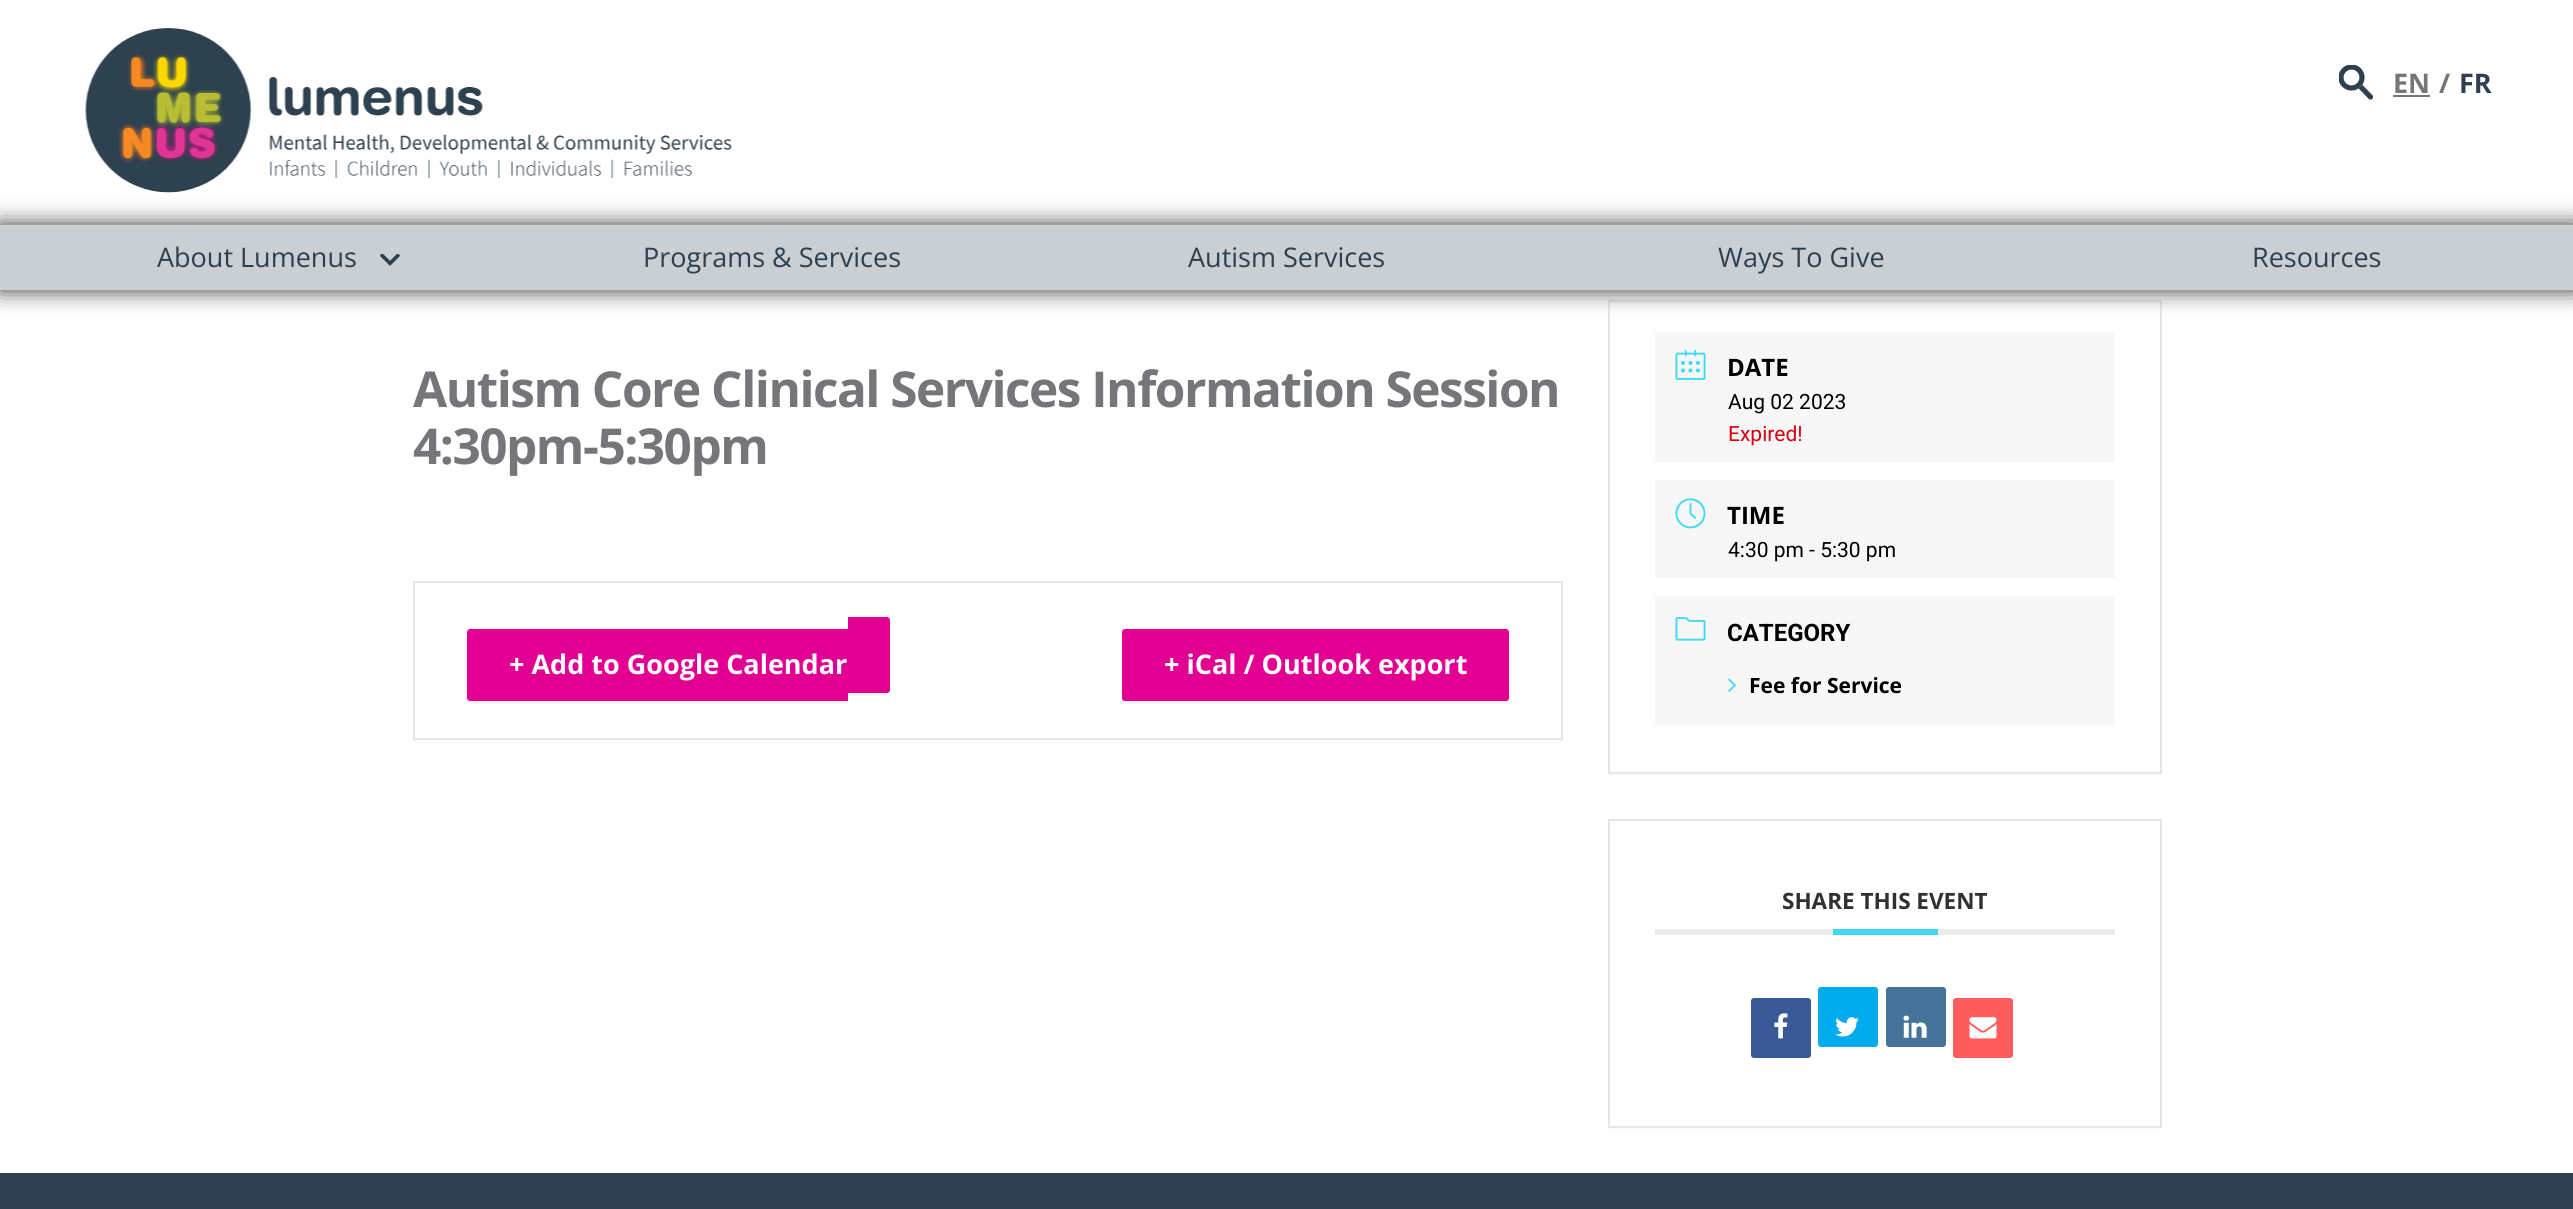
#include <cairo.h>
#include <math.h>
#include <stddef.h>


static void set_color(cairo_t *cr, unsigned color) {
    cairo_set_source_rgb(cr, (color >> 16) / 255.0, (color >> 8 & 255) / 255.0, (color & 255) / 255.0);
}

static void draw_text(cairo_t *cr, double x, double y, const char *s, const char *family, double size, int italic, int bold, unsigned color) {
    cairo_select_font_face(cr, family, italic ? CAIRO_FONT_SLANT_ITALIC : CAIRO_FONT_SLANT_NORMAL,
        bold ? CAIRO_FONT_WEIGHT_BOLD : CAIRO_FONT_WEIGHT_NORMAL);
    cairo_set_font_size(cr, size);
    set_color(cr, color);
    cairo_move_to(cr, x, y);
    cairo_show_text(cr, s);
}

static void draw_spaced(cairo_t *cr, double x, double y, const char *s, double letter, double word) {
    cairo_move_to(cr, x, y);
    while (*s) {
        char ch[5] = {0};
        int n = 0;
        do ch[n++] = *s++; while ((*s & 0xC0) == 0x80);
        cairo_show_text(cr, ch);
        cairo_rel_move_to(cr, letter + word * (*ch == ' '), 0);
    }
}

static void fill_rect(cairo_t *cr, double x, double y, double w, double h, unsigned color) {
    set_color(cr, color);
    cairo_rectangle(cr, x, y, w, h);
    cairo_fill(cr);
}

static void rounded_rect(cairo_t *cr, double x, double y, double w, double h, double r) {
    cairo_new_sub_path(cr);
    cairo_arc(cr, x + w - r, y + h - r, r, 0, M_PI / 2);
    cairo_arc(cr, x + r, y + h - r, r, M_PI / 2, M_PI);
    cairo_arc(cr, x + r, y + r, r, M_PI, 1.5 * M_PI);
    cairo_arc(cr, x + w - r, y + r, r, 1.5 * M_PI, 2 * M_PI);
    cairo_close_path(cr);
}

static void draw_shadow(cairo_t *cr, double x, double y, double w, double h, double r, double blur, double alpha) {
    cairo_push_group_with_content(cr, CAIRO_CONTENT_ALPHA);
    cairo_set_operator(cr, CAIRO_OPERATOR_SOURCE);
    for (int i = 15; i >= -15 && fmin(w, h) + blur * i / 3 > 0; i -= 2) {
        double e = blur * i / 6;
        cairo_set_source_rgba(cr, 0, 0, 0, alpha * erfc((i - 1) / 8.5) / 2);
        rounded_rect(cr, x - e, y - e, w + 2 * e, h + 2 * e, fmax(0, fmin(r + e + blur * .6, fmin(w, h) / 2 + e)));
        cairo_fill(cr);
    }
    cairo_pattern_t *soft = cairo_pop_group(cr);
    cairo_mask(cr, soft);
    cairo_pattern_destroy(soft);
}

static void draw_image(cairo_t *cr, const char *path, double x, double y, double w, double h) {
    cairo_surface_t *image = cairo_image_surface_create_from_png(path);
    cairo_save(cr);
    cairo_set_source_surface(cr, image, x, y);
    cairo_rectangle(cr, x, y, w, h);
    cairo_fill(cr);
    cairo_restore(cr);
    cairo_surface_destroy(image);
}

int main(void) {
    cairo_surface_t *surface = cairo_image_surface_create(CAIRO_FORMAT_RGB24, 2573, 1209);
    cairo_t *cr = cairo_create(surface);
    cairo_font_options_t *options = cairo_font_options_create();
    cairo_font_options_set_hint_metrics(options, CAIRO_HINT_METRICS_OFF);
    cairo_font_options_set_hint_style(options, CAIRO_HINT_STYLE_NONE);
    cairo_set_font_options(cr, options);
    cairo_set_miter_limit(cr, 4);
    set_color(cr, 0xFFFFFF);
    cairo_paint(cr);
    cairo_rectangle(cr, 1609, 301, 552, 472);
    set_color(cr, 0xE6E6E6);
    cairo_stroke(cr);
    set_color(cr, 0x403F3F);
    draw_shadow(cr, -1, 224, 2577, 67, 0, 11, 1);
    draw_image(cr, "assets/img1.png", 85, 28, 647, 165);
    cairo_new_path(cr);
    cairo_move_to(cr, 2357, 83);
    cairo_line_to(cr, 2370.5, 97);
    set_color(cr, 0x2E404F);
    cairo_set_line_width(cr, 5.2);
    cairo_set_line_cap(cr, CAIRO_LINE_CAP_ROUND);
    cairo_stroke(cr);
    cairo_save(cr);
    cairo_rectangle(cr, 2339, 65, 36, 36);
    cairo_clip(cr);
    set_color(cr, 0xFFFFFF);
    cairo_arc(cr, 2351.5, 77.5, 13, 0, 2 * M_PI);
    cairo_fill(cr);
    cairo_arc(cr, 2351.5, 77.5, 10.5, 0, 2 * M_PI);
    set_color(cr, 0x2E404F);
    cairo_set_line_cap(cr, CAIRO_LINE_CAP_BUTT);
    cairo_stroke(cr);
    cairo_restore(cr);
    draw_text(cr, 2393, 93, "EN", "Open Sans", 27, 0, 1, 0x747679);
    fill_rect(cr, 2393, 95, 37, 2, 0x747679);
    draw_text(cr, 2439, 93, "/", "Open Sans", 27, 0, 1, 0x747679);
    draw_text(cr, 2459, 93, "FR", "Open Sans", 27, 0, 1, 0x2E404F);
    fill_rect(cr, 0, 225, 2573, 65, 0xCACFD3);
    draw_text(cr, 157, 267, "About Lumenus", "Open Sans", 27, 0, 0, 0x2E404F);
    draw_image(cr, "assets/img2.png", 380, 254, 20, 12);
    draw_text(cr, 643, 267, "Programs & Services", "Open Sans", 27, 0, 0, 0x2E404F);
    draw_text(cr, 1188, 267, "Autism Services", "Open Sans", 27, 0, 0, 0x2E404F);
    draw_text(cr, 1718, 267, "Ways To Give", "Open Sans", 27, 0, 0, 0x2E404F);
    draw_text(cr, 2252, 267, "Resources", "Open Sans", 27, 0, 0, 0x2E404F);
    cairo_select_font_face(cr, "Open Sans", CAIRO_FONT_SLANT_NORMAL, CAIRO_FONT_WEIGHT_BOLD);
    cairo_set_font_size(cr, 49.5);
    set_color(cr, 0x747679);
    draw_spaced(cr, 413, 407, "Autism Core Clinical Services Information Session", -1.5, 0);
    draw_spaced(cr, 413, 464, "4:30pm-5:30pm", -1.5, 0);
    fill_rect(cr, 413, 740, 1150, 3, 0xFBFBFB);
    cairo_rectangle(cr, 414, 582, 1148, 157);
    set_color(cr, 0xE6E6E6);
    cairo_set_line_width(cr, 2);
    cairo_set_line_cap(cr, CAIRO_LINE_CAP_BUTT);
    cairo_stroke(cr);
    set_color(cr, 0xF7F7F7);
    cairo_new_path(cr);
    cairo_move_to(cr, 467, 699);
    cairo_line_to(cr, 467, 701);
    cairo_curve_to(cr, 467, 703, 468, 704, 470, 704);
    cairo_line_to(cr, 848, 704);
    cairo_line_to(cr, 848, 632);
    cairo_line_to(cr, 848, 700);
    cairo_line_to(cr, 470, 700);
    cairo_curve_to(cr, 468, 700, 468, 700, 467, 699);
    cairo_close_path(cr);
    cairo_fill(cr);
    set_color(cr, 0xE20093);
    cairo_new_path(cr);
    cairo_move_to(cr, 470, 629);
    cairo_line_to(cr, 848, 629);
    cairo_line_to(cr, 848, 701);
    cairo_line_to(cr, 470, 701);
    cairo_curve_to(cr, 468.5, 701, 467, 699.5, 467, 698);
    cairo_line_to(cr, 467, 632);
    cairo_curve_to(cr, 467, 630.5, 468.5, 629, 470, 629);
    cairo_close_path(cr);
    cairo_fill(cr);
    draw_text(cr, 509, 674, "+ Add to Google Calendar", "Open Sans", 27, 0, 1, 0xFFFFFF);
    set_color(cr, 0xF7F7F7);
    cairo_new_path(cr);
    cairo_move_to(cr, 848, 693);
    cairo_line_to(cr, 848, 696);
    cairo_line_to(cr, 887, 696);
    cairo_curve_to(cr, 889, 696, 890, 695, 890, 693);
    cairo_line_to(cr, 890, 623);
    cairo_line_to(cr, 890, 621);
    cairo_line_to(cr, 890, 690);
    cairo_curve_to(cr, 890, 692, 888, 693, 886, 693);
    cairo_close_path(cr);
    cairo_fill(cr);
    set_color(cr, 0xE20093);
    cairo_new_path(cr);
    cairo_move_to(cr, 848, 617);
    cairo_line_to(cr, 887, 617);
    cairo_curve_to(cr, 888.5, 617, 890, 618.5, 890, 620);
    cairo_line_to(cr, 890, 690);
    cairo_curve_to(cr, 890, 691.5, 888.5, 693, 887, 693);
    cairo_line_to(cr, 848, 693);
    cairo_close_path(cr);
    cairo_fill(cr);
    set_color(cr, 0xF7F7F7);
    cairo_new_path(cr);
    cairo_move_to(cr, 1122, 698);
    cairo_curve_to(cr, 1122, 700, 1121, 703, 1124, 704);
    cairo_line_to(cr, 1506, 704);
    cairo_line_to(cr, 1508, 703);
    cairo_line_to(cr, 1509, 698);
    cairo_curve_to(cr, 1509, 699, 1508, 700, 1506, 700);
    cairo_line_to(cr, 1125, 700);
    cairo_curve_to(cr, 1123, 700, 1122, 699, 1122, 698);
    cairo_close_path(cr);
    cairo_fill(cr);
    set_color(cr, 0xE20093);
    rounded_rect(cr, 1122, 629, 387, 72, 3);
    cairo_fill(cr);
    draw_text(cr, 1164, 674, "+ iCal / Outlook export", "Open Sans", 27, 0, 1, 0xFFFFFF);
    set_color(cr, 0xFBFBFB);
    cairo_new_path(cr);
    cairo_move_to(cr, 1608, 774);
    cairo_line_to(cr, 1608, 777);
    cairo_line_to(cr, 2162, 777);
    cairo_line_to(cr, 2162, 303);
    cairo_line_to(cr, 2162, 774);
    cairo_close_path(cr);
    cairo_fill(cr);
    fill_rect(cr, 1655, 332, 460, 130, 0xF7F7F7);
    draw_image(cr, "assets/img3.png", 1675, 349, 31, 31);
    draw_text(cr, 1727, 376, "DATE", "Open Sans", 24, 0, 1, 0x000000);
    draw_text(cr, 1728, 409, "Aug 02 2023", "Roboto", 21, 0, 0, 0x000000);
    draw_text(cr, 1728, 441, "Expired!", "Roboto", 21, 0, 0, 0xD8000C);
    fill_rect(cr, 1655, 480, 460, 98, 0xF7F7F7);
    draw_image(cr, "assets/img4.png", 1675, 498, 31, 31);
    draw_text(cr, 1727, 524, "TIME", "Open Sans", 24, 0, 1, 0x000000);
    draw_text(cr, 1728, 557, "4:30 pm - 5:30 pm", "Roboto", 21, 0, 0, 0x000000);
    fill_rect(cr, 1655, 596, 460, 129, 0xF7F7F7);
    draw_image(cr, "assets/img5.png", 1675, 617, 31, 24);
    draw_text(cr, 1727, 641, "CATEGORY", "Roboto", 24, 0, 1, 0x000000);
    draw_image(cr, "assets/img6.png", 1728, 678, 8, 14);
    draw_text(cr, 1749, 693, "Fee for Service", "Open Sans", 21, 0, 1, 0x000000);
    set_color(cr, 0xFBFBFB);
    cairo_new_path(cr);
    cairo_move_to(cr, 1608, 1128);
    cairo_line_to(cr, 1608, 1131);
    cairo_line_to(cr, 2162, 1131);
    cairo_line_to(cr, 2162, 822);
    cairo_line_to(cr, 2162, 1128);
    cairo_close_path(cr);
    cairo_fill(cr);
    cairo_rectangle(cr, 1609, 820, 552, 307);
    set_color(cr, 0xE6E6E6);
    cairo_stroke(cr);
    fill_rect(cr, 1655, 929, 460, 6, 0xEBEBEB);
    draw_text(cr, 1782, 909, "SHARE THIS EVENT", "Open Sans", 22.5, 0, 1, 0x313131);
    fill_rect(cr, 1833, 929, 105, 6, 0x40D9F1);
    set_color(cr, 0x3B5996);
    rounded_rect(cr, 1751, 998, 60, 60, 3);
    cairo_fill(cr);
    draw_image(cr, "assets/img7.png", 1774, 1013, 14, 26);
    set_color(cr, 0x00ACEE);
    rounded_rect(cr, 1818, 987, 60, 60, 3);
    cairo_fill(cr);
    draw_image(cr, "assets/img8.png", 1835, 1017, 24, 20);
    set_color(cr, 0x457399);
    rounded_rect(cr, 1886, 987, 60, 60, 3);
    cairo_fill(cr);
    draw_image(cr, "assets/img9.png", 1903, 1015, 24, 23);
    set_color(cr, 0xFF5D5E);
    rounded_rect(cr, 1953, 998, 60, 60, 3);
    cairo_fill(cr);
    draw_image(cr, "assets/img10.png", 1969, 1017, 28, 22);
    fill_rect(cr, 0, 1173, 2573, 36, 0x2E404F);
    cairo_surface_write_to_png(surface, "output.png");
    cairo_font_options_destroy(options);
    cairo_destroy(cr);
    cairo_surface_destroy(surface);
    return 0;
}
